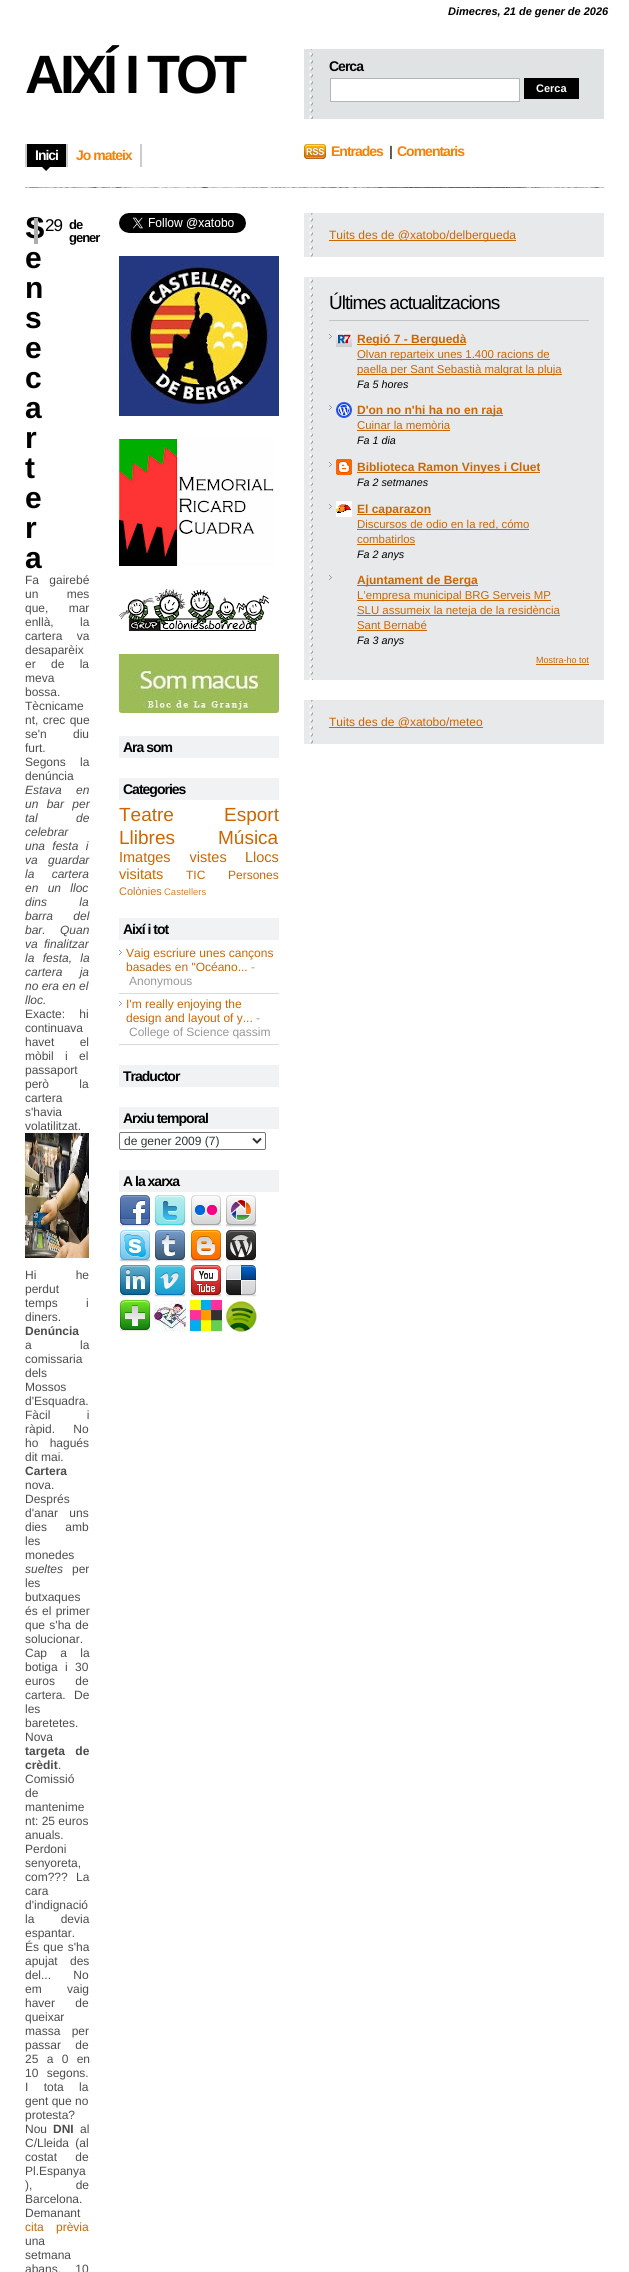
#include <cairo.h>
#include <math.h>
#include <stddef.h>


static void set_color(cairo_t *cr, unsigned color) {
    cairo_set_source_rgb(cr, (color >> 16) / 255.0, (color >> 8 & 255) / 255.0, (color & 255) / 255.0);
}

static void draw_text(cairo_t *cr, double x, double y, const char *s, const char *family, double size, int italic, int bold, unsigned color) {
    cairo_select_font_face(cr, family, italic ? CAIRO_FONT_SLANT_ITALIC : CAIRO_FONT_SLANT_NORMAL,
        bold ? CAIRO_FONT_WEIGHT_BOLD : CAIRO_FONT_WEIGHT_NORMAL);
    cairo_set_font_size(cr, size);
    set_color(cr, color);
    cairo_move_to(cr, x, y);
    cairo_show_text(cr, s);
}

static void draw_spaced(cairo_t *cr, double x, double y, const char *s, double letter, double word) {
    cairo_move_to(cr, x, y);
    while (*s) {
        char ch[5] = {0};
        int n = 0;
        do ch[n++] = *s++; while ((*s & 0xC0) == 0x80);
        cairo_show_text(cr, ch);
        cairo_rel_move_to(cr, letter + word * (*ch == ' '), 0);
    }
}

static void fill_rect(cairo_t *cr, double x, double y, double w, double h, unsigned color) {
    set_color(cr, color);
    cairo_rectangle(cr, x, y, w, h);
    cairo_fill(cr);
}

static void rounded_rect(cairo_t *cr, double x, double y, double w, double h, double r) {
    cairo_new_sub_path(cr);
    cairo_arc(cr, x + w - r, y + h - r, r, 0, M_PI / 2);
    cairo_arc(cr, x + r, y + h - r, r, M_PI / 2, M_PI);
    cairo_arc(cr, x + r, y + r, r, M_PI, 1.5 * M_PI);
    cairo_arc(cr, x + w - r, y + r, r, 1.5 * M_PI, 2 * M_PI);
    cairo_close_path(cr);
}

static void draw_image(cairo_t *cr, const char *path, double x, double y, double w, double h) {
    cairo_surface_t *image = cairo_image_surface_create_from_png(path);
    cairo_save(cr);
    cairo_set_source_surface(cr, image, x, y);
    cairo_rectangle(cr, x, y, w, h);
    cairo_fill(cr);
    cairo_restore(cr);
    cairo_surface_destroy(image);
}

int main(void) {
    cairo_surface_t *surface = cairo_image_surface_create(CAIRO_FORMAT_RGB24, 629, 2272);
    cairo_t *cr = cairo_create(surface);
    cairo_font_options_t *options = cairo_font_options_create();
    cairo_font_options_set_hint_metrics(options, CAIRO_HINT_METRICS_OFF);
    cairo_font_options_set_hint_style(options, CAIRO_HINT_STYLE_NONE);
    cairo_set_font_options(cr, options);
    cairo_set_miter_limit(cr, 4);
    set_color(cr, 0xFFFFFF);
    cairo_paint(cr);
    draw_text(cr, 448, 15, "Dimecres, 21 de gener de 2026", "Liberation Sans", 11, 1, 1, 0x000000);
    cairo_select_font_face(cr, "Liberation Sans", CAIRO_FONT_SLANT_NORMAL, CAIRO_FONT_WEIGHT_BOLD);
    cairo_set_font_size(cr, 54);
    draw_spaced(cr, 25, 93, "AIXÍ I TOT", -4, 0);
    fill_rect(cr, 304, 49, 300, 70, 0xE0E3E4);
    draw_image(cr, "assets/img1.png", 309, 49, 4, 70);
    cairo_set_font_size(cr, 14);
    set_color(cr, 0x000000);
    draw_spaced(cr, 329, 71, "Cerca", -1, 0);
    set_color(cr, 0xFFFFFF);
    cairo_rectangle(cr, 330.5, 78.5, 189, 23);
    cairo_fill_preserve(cr);
    set_color(cr, 0xB3B6B7);
    cairo_set_line_width(cr, 1);
    cairo_stroke(cr);
    fill_rect(cr, 524, 78, 55, 21, 0x000000);
    draw_text(cr, 536, 92, "Cerca", "Liberation Sans", 11, 0, 1, 0xFFFFFF);
    fill_rect(cr, 25, 144, 2, 23, 0xCCCCCC);
    fill_rect(cr, 66, 144, 2, 23, 0xCCCCCC);
    fill_rect(cr, 27, 144, 39, 27, 0x000000);
    draw_image(cr, "assets/img2.png", 27, 167, 39, 5);
    cairo_set_font_size(cr, 14);
    set_color(cr, 0xFFFFFF);
    draw_spaced(cr, 35, 160, "Inici", -1, 0);
    fill_rect(cr, 140, 144, 2, 23, 0xCCCCCC);
    set_color(cr, 0xFF7E00);
    draw_spaced(cr, 76, 160, "Jo mateix", -1, 0);
    draw_image(cr, "assets/img3.png", 304, 144, 22, 15);
    draw_spaced(cr, 331, 156, "Entrades", -1, 0);
    set_color(cr, 0x4C4C4C);
    draw_spaced(cr, 389, 156, "|", -1, 0);
    set_color(cr, 0xFF7E00);
    draw_spaced(cr, 397, 156, "Comentaris", -1, 0);
    draw_image(cr, "assets/img4.png", 25, 187, 579, 1);
    cairo_set_font_size(cr, 30);
    set_color(cr, 0x000000);
    draw_spaced(cr, 25, 238, "S", -1, 0);
    draw_spaced(cr, 25, 268, "e", -1, 0);
    draw_spaced(cr, 25, 298, "n", -1, 0);
    draw_spaced(cr, 25, 328, "s", -1, 0);
    draw_spaced(cr, 25, 358, "e", -1, 0);
    draw_spaced(cr, 25, 388, "c", -1, 0);
    draw_spaced(cr, 25, 418, "a", -1, 0);
    draw_spaced(cr, 25, 448, "r", -1, 0);
    draw_spaced(cr, 25, 478, "t", -1, 0);
    draw_spaced(cr, 25, 508, "e", -1, 0);
    draw_spaced(cr, 25, 538, "r", -1, 0);
    draw_spaced(cr, 25, 568, "a", -1, 0);
    fill_rect(cr, 34, 218, 4, 26, 0xADADAD);
    cairo_select_font_face(cr, "Liberation Sans", CAIRO_FONT_SLANT_NORMAL, CAIRO_FONT_WEIGHT_NORMAL);
    cairo_set_font_size(cr, 17);
    set_color(cr, 0x000000);
    draw_spaced(cr, 45, 231, "29", -1, 0);
    cairo_select_font_face(cr, "Liberation Sans", CAIRO_FONT_SLANT_NORMAL, CAIRO_FONT_WEIGHT_BOLD);
    cairo_set_font_size(cr, 13);
    draw_spaced(cr, 69, 229, "de", -1, 0);
    draw_spaced(cr, 69, 242, "gener", -1, 0);
    cairo_select_font_face(cr, "Liberation Sans", CAIRO_FONT_SLANT_NORMAL, CAIRO_FONT_WEIGHT_NORMAL);
    cairo_set_font_size(cr, 12);
    set_color(cr, 0x4C4C4C);
    draw_spaced(cr, 25, 584, "Fa gairebé", 0, 7);
    draw_spaced(cr, 25, 598, "un mes", 0, 25);
    draw_spaced(cr, 25, 612, "que, mar", 0, 17);
    draw_spaced(cr, 25, 626, "enllà, la", 0, 23);
    draw_spaced(cr, 25, 640, "cartera va", 0, 11);
    draw_text(cr, 25, 654, "desaparèix", "Liberation Sans", 12, 0, 0, 0x4C4C4C);
    draw_spaced(cr, 25, 668, "er de la", 0, 12);
    draw_text(cr, 25, 682, "meva", "Liberation Sans", 12, 0, 0, 0x4C4C4C);
    draw_text(cr, 25, 696, "bossa.", "Liberation Sans", 12, 0, 0, 0x4C4C4C);
    draw_text(cr, 25, 710, "Tècnicame", "Liberation Sans", 12, 0, 0, 0x4C4C4C);
    draw_spaced(cr, 25, 724, "nt, crec que", 0, 1);
    draw_spaced(cr, 25, 738, "se'n diu", 0, 23);
    draw_text(cr, 25, 752, "furt.", "Liberation Sans", 12, 0, 0, 0x4C4C4C);
    draw_spaced(cr, 25, 766, "Segons la", 0, 11);
    draw_text(cr, 25, 780, "denúncia", "Liberation Sans", 12, 0, 0, 0x4C4C4C);
    cairo_select_font_face(cr, "Liberation Sans", CAIRO_FONT_SLANT_ITALIC, CAIRO_FONT_WEIGHT_NORMAL);
    draw_spaced(cr, 25, 794, "Estava en", 0, 11);
    draw_spaced(cr, 25, 808, "un bar per", 0, 5);
    draw_spaced(cr, 25, 822, "tal de", 0, 35);
    draw_text(cr, 25, 836, "celebrar", "Liberation Sans", 12, 1, 0, 0x4C4C4C);
    draw_spaced(cr, 25, 850, "una festa i", 0, 4);
    draw_spaced(cr, 25, 864, "va guardar", 0, 7);
    draw_spaced(cr, 25, 878, "la cartera", 0, 14);
    draw_spaced(cr, 25, 892, "en un lloc", 0, 6);
    draw_spaced(cr, 25, 906, "dins la", 0, 29);
    draw_spaced(cr, 25, 920, "barra del", 0, 17);
    draw_spaced(cr, 25, 934, "bar. Quan", 0, 11);
    draw_spaced(cr, 25, 948, "va finalitzar", 0, 3);
    draw_spaced(cr, 25, 962, "la festa, la", 0, 5);
    draw_spaced(cr, 25, 976, "cartera ja", 0, 14);
    draw_text(cr, 25, 990, "no era en el", "Liberation Sans", 12, 1, 0, 0x4C4C4C);
    draw_text(cr, 25, 1004, "lloc.", "Liberation Sans", 12, 1, 0, 0x4C4C4C);
    cairo_select_font_face(cr, "Liberation Sans", CAIRO_FONT_SLANT_NORMAL, CAIRO_FONT_WEIGHT_NORMAL);
    draw_spaced(cr, 25, 1018, "Exacte: hi", 0, 11);
    draw_text(cr, 25, 1032, "continuava", "Liberation Sans", 12, 0, 0, 0x4C4C4C);
    draw_spaced(cr, 25, 1046, "havet el", 0, 22);
    draw_spaced(cr, 25, 1060, "mòbil i el", 0, 8);
    draw_text(cr, 25, 1074, "passaport", "Liberation Sans", 12, 0, 0, 0x4C4C4C);
    draw_spaced(cr, 25, 1088, "però la", 0, 27);
    draw_text(cr, 25, 1102, "cartera", "Liberation Sans", 12, 0, 0, 0x4C4C4C);
    draw_text(cr, 25, 1116, "s'havia", "Liberation Sans", 12, 0, 0, 0x4C4C4C);
    draw_text(cr, 25, 1130, "volatilitzat.", "Liberation Sans", 12, 0, 0, 0x4C4C4C);
    draw_image(cr, "assets/img5.png", 25, 1133, 64, 125);
    draw_spaced(cr, 25, 1279, "Hi he", 0, 36);
    draw_text(cr, 25, 1293, "perdut", "Liberation Sans", 12, 0, 0, 0x4C4C4C);
    draw_spaced(cr, 25, 1307, "temps i", 0, 25);
    draw_text(cr, 25, 1321, "diners.", "Liberation Sans", 12, 0, 0, 0x4C4C4C);
    draw_text(cr, 25, 1335, "Denúncia", "Liberation Sans", 12, 0, 1, 0x4C4C4C);
    cairo_select_font_face(cr, "Liberation Sans", CAIRO_FONT_SLANT_NORMAL, CAIRO_FONT_WEIGHT_NORMAL);
    draw_spaced(cr, 25, 1349, "a la", 0, 45);
    draw_text(cr, 25, 1363, "comissaria", "Liberation Sans", 12, 0, 0, 0x4C4C4C);
    draw_text(cr, 25, 1377, "dels", "Liberation Sans", 12, 0, 0, 0x4C4C4C);
    draw_text(cr, 25, 1391, "Mossos", "Liberation Sans", 12, 0, 0, 0x4C4C4C);
    draw_text(cr, 25, 1405, "d'Esquadra.", "Liberation Sans", 12, 0, 0, 0x4C4C4C);
    draw_spaced(cr, 25, 1419, "Fàcil i", 0, 33);
    draw_spaced(cr, 25, 1433, "ràpid. No", 0, 15);
    draw_spaced(cr, 25, 1447, "ho hagués", 0, 8);
    draw_text(cr, 25, 1461, "dit mai.", "Liberation Sans", 12, 0, 0, 0x4C4C4C);
    draw_text(cr, 25, 1475, "Cartera", "Liberation Sans", 12, 0, 1, 0x4C4C4C);
    draw_text(cr, 25, 1489, "nova.", "Liberation Sans", 12, 0, 0, 0x4C4C4C);
    draw_text(cr, 25, 1503, "Després", "Liberation Sans", 12, 0, 0, 0x4C4C4C);
    draw_spaced(cr, 25, 1517, "d'anar uns", 0, 8);
    draw_spaced(cr, 25, 1531, "dies amb", 0, 15);
    draw_text(cr, 25, 1545, "les", "Liberation Sans", 12, 0, 0, 0x4C4C4C);
    draw_text(cr, 25, 1559, "monedes", "Liberation Sans", 12, 0, 0, 0x4C4C4C);
    draw_text(cr, 25, 1573, "sueltes", "Liberation Sans", 12, 1, 0, 0x4C4C4C);
    draw_text(cr, 72, 1573, "per", "Liberation Sans", 12, 0, 0, 0x4C4C4C);
    draw_text(cr, 25, 1587, "les", "Liberation Sans", 12, 0, 0, 0x4C4C4C);
    draw_text(cr, 25, 1601, "butxaques", "Liberation Sans", 12, 0, 0, 0x4C4C4C);
    draw_spaced(cr, 25, 1615, "és el primer", 0, 1);
    draw_spaced(cr, 25, 1629, "que s'ha de", 0, 1);
    draw_text(cr, 25, 1643, "solucionar.", "Liberation Sans", 12, 0, 0, 0x4C4C4C);
    draw_spaced(cr, 25, 1657, "Cap a la", 0, 10);
    draw_spaced(cr, 25, 1671, "botiga i 30", 0, 4);
    draw_spaced(cr, 25, 1685, "euros de", 0, 17);
    draw_spaced(cr, 25, 1699, "cartera. De", 0, 5);
    draw_text(cr, 25, 1713, "les", "Liberation Sans", 12, 0, 0, 0x4C4C4C);
    draw_text(cr, 25, 1727, "baretetes.", "Liberation Sans", 12, 0, 0, 0x4C4C4C);
    draw_text(cr, 25, 1741, "Nova", "Liberation Sans", 12, 0, 0, 0x4C4C4C);
    cairo_select_font_face(cr, "Liberation Sans", CAIRO_FONT_SLANT_NORMAL, CAIRO_FONT_WEIGHT_BOLD);
    draw_spaced(cr, 25, 1755, "targeta de", 0, 7);
    draw_text(cr, 25, 1769, "crèdit", "Liberation Sans", 12, 0, 1, 0x4C4C4C);
    draw_text(cr, 58, 1769, ".", "Liberation Sans", 12, 0, 0, 0x4C4C4C);
    draw_text(cr, 25, 1783, "Comissió", "Liberation Sans", 12, 0, 0, 0x4C4C4C);
    draw_text(cr, 25, 1797, "de", "Liberation Sans", 12, 0, 0, 0x4C4C4C);
    draw_text(cr, 25, 1811, "mantenime", "Liberation Sans", 12, 0, 0, 0x4C4C4C);
    draw_text(cr, 25, 1825, "nt: 25 euros", "Liberation Sans", 12, 0, 0, 0x4C4C4C);
    draw_text(cr, 25, 1839, "anuals.", "Liberation Sans", 12, 0, 0, 0x4C4C4C);
    draw_text(cr, 25, 1853, "Perdoni", "Liberation Sans", 12, 0, 0, 0x4C4C4C);
    draw_text(cr, 25, 1867, "senyoreta,", "Liberation Sans", 12, 0, 0, 0x4C4C4C);
    draw_spaced(cr, 25, 1881, "com?\077? La", 0, 5);
    draw_text(cr, 25, 1895, "cara", "Liberation Sans", 12, 0, 0, 0x4C4C4C);
    draw_text(cr, 25, 1909, "d'indignació", "Liberation Sans", 12, 0, 0, 0x4C4C4C);
    draw_spaced(cr, 25, 1923, "la devia", 0, 23);
    draw_text(cr, 25, 1937, "espantar.", "Liberation Sans", 12, 0, 0, 0x4C4C4C);
    draw_spaced(cr, 25, 1951, "És que s'ha", 0, 1);
    draw_spaced(cr, 25, 1965, "apujat des", 0, 9);
    draw_spaced(cr, 25, 1979, "del... No", 0, 19);
    draw_spaced(cr, 25, 1993, "em vaig", 0, 22);
    draw_spaced(cr, 25, 2007, "haver de", 0, 17);
    draw_text(cr, 25, 2021, "queixar", "Liberation Sans", 12, 0, 0, 0x4C4C4C);
    draw_spaced(cr, 25, 2035, "massa per", 0, 8);
    draw_spaced(cr, 25, 2049, "passar de", 0, 11);
    draw_spaced(cr, 25, 2063, "25 a 0 en", 0, 5);
    draw_spaced(cr, 25, 2077, "10 segons.", 0, 5);
    draw_spaced(cr, 25, 2091, "I tota la", 0, 12);
    draw_text(cr, 25, 2105, "gent que no", "Liberation Sans", 12, 0, 0, 0x4C4C4C);
    draw_text(cr, 25, 2119, "protesta?", "Liberation Sans", 12, 0, 0, 0x4C4C4C);
    draw_text(cr, 25, 2133, "Nou", "Liberation Sans", 12, 0, 0, 0x4C4C4C);
    draw_text(cr, 53, 2133, "DNI", "Liberation Sans", 12, 0, 1, 0x4C4C4C);
    draw_text(cr, 80, 2133, "al", "Liberation Sans", 12, 0, 0, 0x4C4C4C);
    draw_spaced(cr, 25, 2147, "C/Lleida (al", 0, 3);
    draw_spaced(cr, 25, 2161, "costat de", 0, 15);
    draw_text(cr, 25, 2175, "Pl.Espanya", "Liberation Sans", 12, 0, 0, 0x4C4C4C);
    draw_spaced(cr, 25, 2189, "), de", 0, 40);
    draw_text(cr, 25, 2203, "Barcelona.", "Liberation Sans", 12, 0, 0, 0x4C4C4C);
    draw_text(cr, 25, 2217, "Demanant", "Liberation Sans", 12, 0, 0, 0x4C4C4C);
    set_color(cr, 0xCC6600);
    draw_spaced(cr, 25, 2231, "cita prèvia", 0, 9);
    draw_text(cr, 25, 2245, "una", "Liberation Sans", 12, 0, 0, 0x4C4C4C);
    draw_text(cr, 25, 2259, "setmana", "Liberation Sans", 12, 0, 0, 0x4C4C4C);
    draw_spaced(cr, 25, 2273, "abans. 10", 0, 11);
    fill_rect(cr, 304, 213, 300, 44, 0xE7E9EA);
    draw_image(cr, "assets/img6.png", 309, 213, 4, 44);
    fill_rect(cr, 329, 240, 187, 1, 0xCC6600);
    draw_text(cr, 329, 239, "Tuits des de @xatobo/delbergueda", "Liberation Sans", 12, 0, 0, 0xCC6600);
    fill_rect(cr, 304, 277, 300, 403, 0xE7E9EA);
    draw_image(cr, "assets/img7.png", 309, 278, 4, 402);
    fill_rect(cr, 329, 320, 260, 1, 0xC3C4C5);
    cairo_set_font_size(cr, 19);
    set_color(cr, 0x000000);
    draw_spaced(cr, 329, 309, "Últimes actualitzacions", -1, 0);
    draw_image(cr, "assets/img8.png", 329, 334, 3, 5);
    draw_image(cr, "assets/img9.png", 336, 331, 16, 16);
    fill_rect(cr, 357, 344, 109, 1, 0xCC6600);
    draw_text(cr, 357, 343, "Regió 7 - Berguedà", "Liberation Sans", 12, 0, 1, 0xCC6600);
    fill_rect(cr, 357, 359, 193, 1, 0xCC6600);
    draw_text(cr, 357, 358, "Olvan reparteix unes 1.400 racions de", "Liberation Sans", 11.4, 0, 0, 0xCC6600);
    fill_rect(cr, 357, 374, 205, 1, 0xCC6600);
    draw_text(cr, 357, 373, "paella per Sant Sebastià malgrat la pluja", "Liberation Sans", 11.4, 0, 0, 0xCC6600);
    draw_text(cr, 357, 388, "Fa 5 hores", "Liberation Sans", 10.75, 1, 0, 0x000000);
    draw_image(cr, "assets/img8.png", 329, 405, 3, 5);
    draw_image(cr, "assets/img10.png", 336, 402, 16, 16);
    fill_rect(cr, 357, 415, 146, 1, 0xCC6600);
    draw_text(cr, 357, 414, "D'on no n'hi ha no en raja", "Liberation Sans", 12, 0, 1, 0xCC6600);
    draw_text(cr, 357, 429, "Cuinar la memòria", "Liberation Sans", 11.4, 0, 0, 0xCC6600);
    fill_rect(cr, 357, 430, 93, 1, 0xCC6600);
    draw_text(cr, 357, 444, "Fa 1 dia", "Liberation Sans", 10.75, 1, 0, 0x000000);
    draw_image(cr, "assets/img8.png", 329, 462, 3, 5);
    draw_image(cr, "assets/img11.png", 336, 459, 16, 16);
    fill_rect(cr, 357, 472, 183, 1, 0xCC6600);
    draw_text(cr, 357, 471, "Biblioteca Ramon Vinyes i Cluet", "Liberation Sans", 12, 0, 1, 0xCC6600);
    draw_text(cr, 357, 486, "Fa 2 setmanes", "Liberation Sans", 10.75, 1, 0, 0x000000);
    draw_image(cr, "assets/img8.png", 329, 504, 3, 5);
    draw_image(cr, "assets/img12.png", 336, 501, 16, 16);
    fill_rect(cr, 357, 514, 74, 1, 0xCC6600);
    draw_text(cr, 357, 513, "El caparazon", "Liberation Sans", 12, 0, 1, 0xCC6600);
    fill_rect(cr, 357, 529, 172, 1, 0xCC6600);
    draw_text(cr, 357, 528, "Discursos de odio en la red, cómo", "Liberation Sans", 11.4, 0, 0, 0xCC6600);
    draw_text(cr, 357, 543, "combatirlos", "Liberation Sans", 11.4, 0, 0, 0xCC6600);
    fill_rect(cr, 357, 544, 58, 1, 0xCC6600);
    draw_text(cr, 357, 558, "Fa 2 anys", "Liberation Sans", 10.75, 1, 0, 0x000000);
    draw_image(cr, "assets/img8.png", 329, 575, 3, 5);
    fill_rect(cr, 357, 585, 121, 1, 0xCC6600);
    draw_text(cr, 357, 584, "Ajuntament de Berga", "Liberation Sans", 12, 0, 1, 0xCC6600);
    fill_rect(cr, 357, 600, 194, 1, 0xCC6600);
    draw_text(cr, 357, 599, "L’empresa municipal BRG Serveis MP", "Liberation Sans", 11.4, 0, 0, 0xCC6600);
    fill_rect(cr, 357, 615, 203, 1, 0xCC6600);
    draw_text(cr, 357, 614, "SLU assumeix la neteja de la residència", "Liberation Sans", 11.4, 0, 0, 0xCC6600);
    draw_text(cr, 357, 629, "Sant Bernabé", "Liberation Sans", 11.4, 0, 0, 0xCC6600);
    fill_rect(cr, 357, 630, 70, 1, 0xCC6600);
    draw_text(cr, 357, 644, "Fa 3 anys", "Liberation Sans", 10.75, 1, 0, 0x000000);
    draw_text(cr, 536, 663, "Mostra-ho tot", "Liberation Sans", 9, 0, 0, 0xCC6600);
    fill_rect(cr, 536, 664, 53, 1, 0xCC6600);
    fill_rect(cr, 304, 700, 300, 44, 0xE7E9EA);
    draw_image(cr, "assets/img6.png", 309, 700, 4, 44);
    fill_rect(cr, 329, 727, 154, 1, 0xCC6600);
    draw_text(cr, 329, 726, "Tuits des de @xatobo/meteo", "Liberation Sans", 12, 0, 0, 0xCC6600);
    draw_image(cr, "assets/img13.png", 119, 213, 127, 20);
    draw_image(cr, "assets/img14.png", 119, 256, 160, 160);
    draw_image(cr, "assets/img15.png", 119, 439, 155, 127);
    draw_image(cr, "assets/img16.png", 119, 589, 150, 42);
    draw_image(cr, "assets/img17.png", 119, 654, 160, 59);
    fill_rect(cr, 119, 736, 160, 22, 0xF0F2F3);
    cairo_select_font_face(cr, "Liberation Sans", CAIRO_FONT_SLANT_NORMAL, CAIRO_FONT_WEIGHT_BOLD);
    cairo_set_font_size(cr, 14);
    set_color(cr, 0x000000);
    draw_spaced(cr, 123, 752, "Ara som", -1, 0);
    fill_rect(cr, 119, 778, 160, 22, 0xF0F2F3);
    set_color(cr, 0x000000);
    draw_spaced(cr, 123, 794, "Categories", -1, 0);
    draw_text(cr, 119, 821, "Teatre", "Liberation Sans", 19, 0, 0, 0xCC6600);
    draw_text(cr, 224, 821, "Esport", "Liberation Sans", 19, 0, 0, 0xCC6600);
    draw_text(cr, 119, 844, "Llibres", "Liberation Sans", 19, 0, 0, 0xCC6600);
    draw_text(cr, 218, 844, "Música", "Liberation Sans", 19, 0, 0, 0xCC6600);
    cairo_set_font_size(cr, 14.5);
    draw_spaced(cr, 119, 862, "Imatges vistes", 0, 15);
    draw_text(cr, 245, 862, "Llocs", "Liberation Sans", 14.5, 0, 0, 0xCC6600);
    draw_text(cr, 119, 879, "visitats", "Liberation Sans", 14.5, 0, 0, 0xCC6600);
    draw_text(cr, 186, 879, "TIC", "Liberation Sans", 12, 0, 0, 0xCC6600);
    draw_text(cr, 228, 879, "Persones", "Liberation Sans", 12, 0, 0, 0xCC6600);
    draw_text(cr, 119, 895, "Colònies", "Liberation Sans", 11, 0, 0, 0xD1751A);
    draw_text(cr, 164, 895, "Castellers", "Liberation Sans", 9.5, 0, 0, 0xD68533);
    fill_rect(cr, 119, 918, 160, 22, 0xF0F2F3);
    cairo_select_font_face(cr, "Liberation Sans", CAIRO_FONT_SLANT_NORMAL, CAIRO_FONT_WEIGHT_BOLD);
    cairo_set_font_size(cr, 14);
    set_color(cr, 0x000000);
    draw_spaced(cr, 123, 934, "Així i tot", -1, 0);
    draw_image(cr, "assets/img18.png", 119, 950, 3, 5);
    fill_rect(cr, 119, 993, 160, 1, 0xDADADA);
    draw_text(cr, 126, 957, "Vaig escriure unes cançons", "Liberation Sans", 12, 0, 0, 0xCC6600);
    draw_text(cr, 126, 971, "basades en \"Océano...", "Liberation Sans", 12, 0, 0, 0xCC6600);
    draw_text(cr, 251, 971, "-", "Liberation Sans", 12, 0, 0, 0x999999);
    draw_text(cr, 129, 985, "Anonymous", "Liberation Sans", 12, 0, 0, 0x999999);
    draw_image(cr, "assets/img18.png", 119, 1001, 3, 5);
    fill_rect(cr, 119, 1044, 160, 1, 0xDADADA);
    draw_text(cr, 126, 1008, "I'm really enjoying the", "Liberation Sans", 12, 0, 0, 0xCC6600);
    draw_text(cr, 126, 1022, "design and layout of y...", "Liberation Sans", 12, 0, 0, 0xCC6600);
    draw_text(cr, 256, 1022, "-", "Liberation Sans", 12, 0, 0, 0x999999);
    draw_text(cr, 129, 1036, "College of Science qassim", "Liberation Sans", 12, 0, 0, 0x999999);
    fill_rect(cr, 119, 1065, 160, 22, 0xF0F2F3);
    cairo_select_font_face(cr, "Liberation Sans", CAIRO_FONT_SLANT_NORMAL, CAIRO_FONT_WEIGHT_BOLD);
    cairo_set_font_size(cr, 14);
    set_color(cr, 0x000000);
    draw_spaced(cr, 123, 1081, "Traductor", -1, 0);
    fill_rect(cr, 119, 1107, 160, 22, 0xF0F2F3);
    set_color(cr, 0x000000);
    draw_spaced(cr, 123, 1123, "Arxiu temporal", -1, 0);
    rounded_rect(cr, 119.5, 1132.5, 146, 17, 1.5);
    set_color(cr, 0x767676);
    cairo_stroke(cr);
    cairo_new_path(cr);
    cairo_move_to(cr, 253, 1138.5);
    cairo_line_to(cr, 257, 1142.5);
    cairo_line_to(cr, 261, 1138.5);
    set_color(cr, 0x2D3538);
    cairo_set_line_width(cr, 2);
    cairo_stroke(cr);
    draw_text(cr, 124, 1145, "de gener 2009 (7)", "Liberation Sans", 12, 0, 0, 0x2D3538);
    fill_rect(cr, 119, 1170, 160, 22, 0xF0F2F3);
    cairo_select_font_face(cr, "Liberation Sans", CAIRO_FONT_SLANT_NORMAL, CAIRO_FONT_WEIGHT_BOLD);
    cairo_set_font_size(cr, 14);
    set_color(cr, 0x000000);
    draw_spaced(cr, 123, 1186, "A la xarxa", -1, 0);
    draw_image(cr, "assets/img19.png", 119, 1195, 32, 32);
    draw_image(cr, "assets/img20.png", 155, 1195, 30, 32);
    draw_image(cr, "assets/img21.png", 191, 1195, 31, 32);
    draw_image(cr, "assets/img22.png", 225, 1195, 32, 32);
    draw_image(cr, "assets/img23.png", 119, 1230, 32, 32);
    draw_image(cr, "assets/img24.png", 155, 1230, 30, 32);
    draw_image(cr, "assets/img25.png", 190, 1230, 32, 32);
    draw_image(cr, "assets/img26.png", 226, 1230, 30, 32);
    draw_image(cr, "assets/img27.png", 120, 1265, 30, 32);
    draw_image(cr, "assets/img28.png", 154, 1265, 32, 32);
    draw_image(cr, "assets/img29.png", 190, 1265, 32, 32);
    draw_image(cr, "assets/img30.png", 225, 1265, 32, 32);
    draw_image(cr, "assets/img31.png", 120, 1300, 30, 32);
    draw_image(cr, "assets/img32.png", 154, 1300, 32, 32);
    draw_image(cr, "assets/img33.png", 190, 1300, 32, 32);
    draw_image(cr, "assets/img34.png", 225, 1300, 32, 32);
    cairo_surface_write_to_png(surface, "output.png");
    cairo_font_options_destroy(options);
    cairo_destroy(cr);
    cairo_surface_destroy(surface);
    return 0;
}
